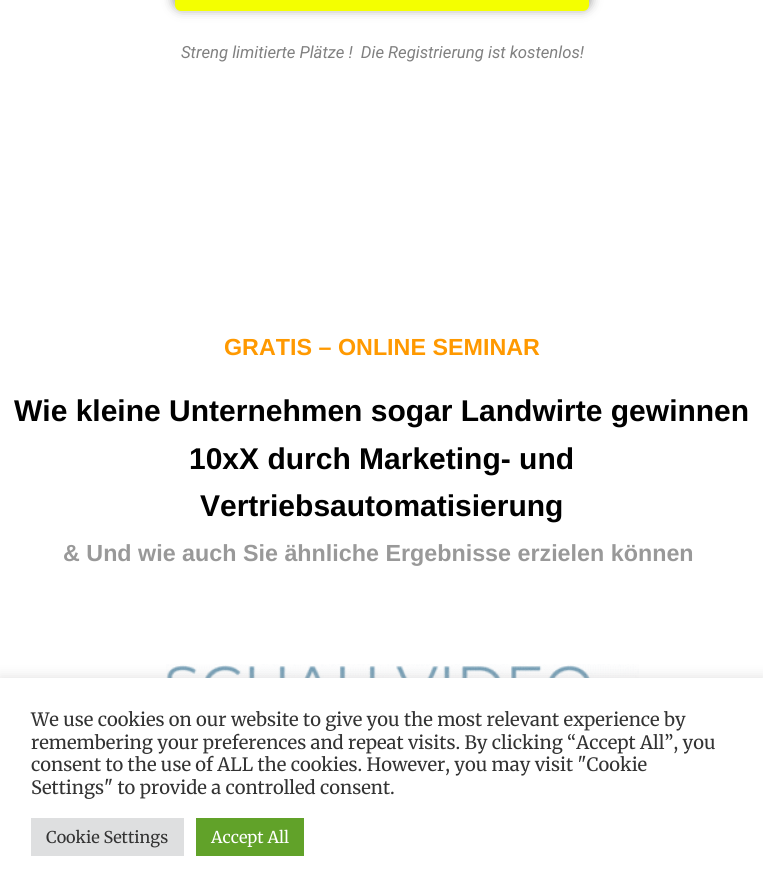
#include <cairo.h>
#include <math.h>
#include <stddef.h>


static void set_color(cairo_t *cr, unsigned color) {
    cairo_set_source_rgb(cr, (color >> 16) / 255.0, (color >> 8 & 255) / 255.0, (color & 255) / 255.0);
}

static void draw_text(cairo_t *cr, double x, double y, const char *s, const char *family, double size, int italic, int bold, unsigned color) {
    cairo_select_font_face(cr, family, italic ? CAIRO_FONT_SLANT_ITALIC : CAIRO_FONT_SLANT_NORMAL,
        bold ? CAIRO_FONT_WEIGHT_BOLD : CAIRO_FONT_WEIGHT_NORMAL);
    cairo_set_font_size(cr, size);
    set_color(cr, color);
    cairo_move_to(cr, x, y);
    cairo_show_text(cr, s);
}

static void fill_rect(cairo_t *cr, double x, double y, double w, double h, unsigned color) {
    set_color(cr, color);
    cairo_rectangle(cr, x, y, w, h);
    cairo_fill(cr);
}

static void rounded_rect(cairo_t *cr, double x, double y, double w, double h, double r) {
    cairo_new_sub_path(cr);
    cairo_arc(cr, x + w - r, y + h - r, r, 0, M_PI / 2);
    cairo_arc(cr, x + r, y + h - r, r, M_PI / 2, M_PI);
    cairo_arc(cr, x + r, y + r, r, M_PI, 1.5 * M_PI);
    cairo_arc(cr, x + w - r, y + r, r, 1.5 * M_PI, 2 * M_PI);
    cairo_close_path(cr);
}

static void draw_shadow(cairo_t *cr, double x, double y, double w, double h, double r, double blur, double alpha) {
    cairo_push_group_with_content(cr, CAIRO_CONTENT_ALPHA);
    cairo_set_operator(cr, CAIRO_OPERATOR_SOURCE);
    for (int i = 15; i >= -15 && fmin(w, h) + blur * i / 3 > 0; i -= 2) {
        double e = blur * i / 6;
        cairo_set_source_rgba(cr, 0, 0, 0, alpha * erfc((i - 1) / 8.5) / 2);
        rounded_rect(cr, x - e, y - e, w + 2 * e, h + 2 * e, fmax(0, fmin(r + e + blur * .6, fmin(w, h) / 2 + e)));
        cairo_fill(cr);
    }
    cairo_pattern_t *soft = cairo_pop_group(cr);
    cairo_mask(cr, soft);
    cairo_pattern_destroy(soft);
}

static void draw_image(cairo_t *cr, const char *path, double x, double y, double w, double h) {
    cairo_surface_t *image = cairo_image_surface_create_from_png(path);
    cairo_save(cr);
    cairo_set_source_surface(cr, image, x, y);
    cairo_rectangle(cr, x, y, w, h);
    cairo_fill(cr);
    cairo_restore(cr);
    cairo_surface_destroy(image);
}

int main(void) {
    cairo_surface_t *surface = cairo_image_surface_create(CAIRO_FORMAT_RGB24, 763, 893);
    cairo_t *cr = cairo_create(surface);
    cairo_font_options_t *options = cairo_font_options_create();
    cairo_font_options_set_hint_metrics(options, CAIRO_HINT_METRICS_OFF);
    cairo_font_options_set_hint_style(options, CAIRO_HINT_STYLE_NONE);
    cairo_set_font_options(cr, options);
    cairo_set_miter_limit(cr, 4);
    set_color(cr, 0xFFFFFF);
    cairo_paint(cr);
    set_color(cr, 0x000000);
    draw_shadow(cr, 175, -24, 414, 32, 6, 6, 0.5);
    set_color(cr, 0xF4FF00);
    rounded_rect(cr, 175, -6, 414, 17, 6);
    cairo_fill(cr);
    draw_text(cr, 181, 58, "Streng limitierte Plätze !  Die Registrierung ist kostenlos!", "Roboto", 16.7, 1, 0, 0x808080);
    draw_text(cr, 224, 355, "GRATIS – ONLINE SEMINAR", "Liberation Sans", 23.3, 0, 1, 0xFF9900);
    draw_text(cr, 14, 421, "Wie kleine Unternehmen sogar Landwirte gewinnen", "Liberation Sans", 30, 0, 1, 0x000000);
    draw_text(cr, 189, 469, "10xX durch Marketing- und", "Liberation Sans", 30, 0, 1, 0x000000);
    draw_text(cr, 200, 516, "Vertriebsautomatisierung", "Liberation Sans", 30, 0, 1, 0x000000);
    draw_text(cr, 63, 561, "& Und wie auch Sie ähnliche Ergebnisse erzielen können", "Liberation Sans", 23.3, 0, 1, 0x999999);
    draw_image(cr, "assets/img1.png", 166, 664, 473, 14);
    set_color(cr, 0xACABAB);
    draw_shadow(cr, 0, 676, 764, 217, 0, 6, 0.3);
    fill_rect(cr, 0, 678, 763, 215, 0xFFFFFF);
    draw_text(cr, 31, 726, "We use cookies on our website to give you the most relevant experience by", "Merriweather", 18.35, 0, 0, 0x333333);
    draw_text(cr, 31, 749, "remembering your preferences and repeat visits. By clicking “Accept All”, you", "Merriweather", 18.35, 0, 0, 0x333333);
    draw_text(cr, 31, 771, "consent to the use of ALL the cookies. However, you may visit \"Cookie", "Merriweather", 18.35, 0, 0, 0x333333);
    draw_text(cr, 31, 794, "Settings\" to provide a controlled consent.", "Merriweather", 18.35, 0, 0, 0x333333);
    fill_rect(cr, 31, 818, 153, 38, 0xDEDFE0);
    draw_text(cr, 46, 843, "Cookie Settings", "Merriweather", 16.25, 0, 0, 0x333333);
    fill_rect(cr, 196, 818, 108, 38, 0x61A229);
    draw_text(cr, 211, 843, "Accept All", "Merriweather", 16.25, 0, 0, 0xFFFFFF);
    cairo_surface_write_to_png(surface, "output.png");
    cairo_font_options_destroy(options);
    cairo_destroy(cr);
    cairo_surface_destroy(surface);
    return 0;
}
